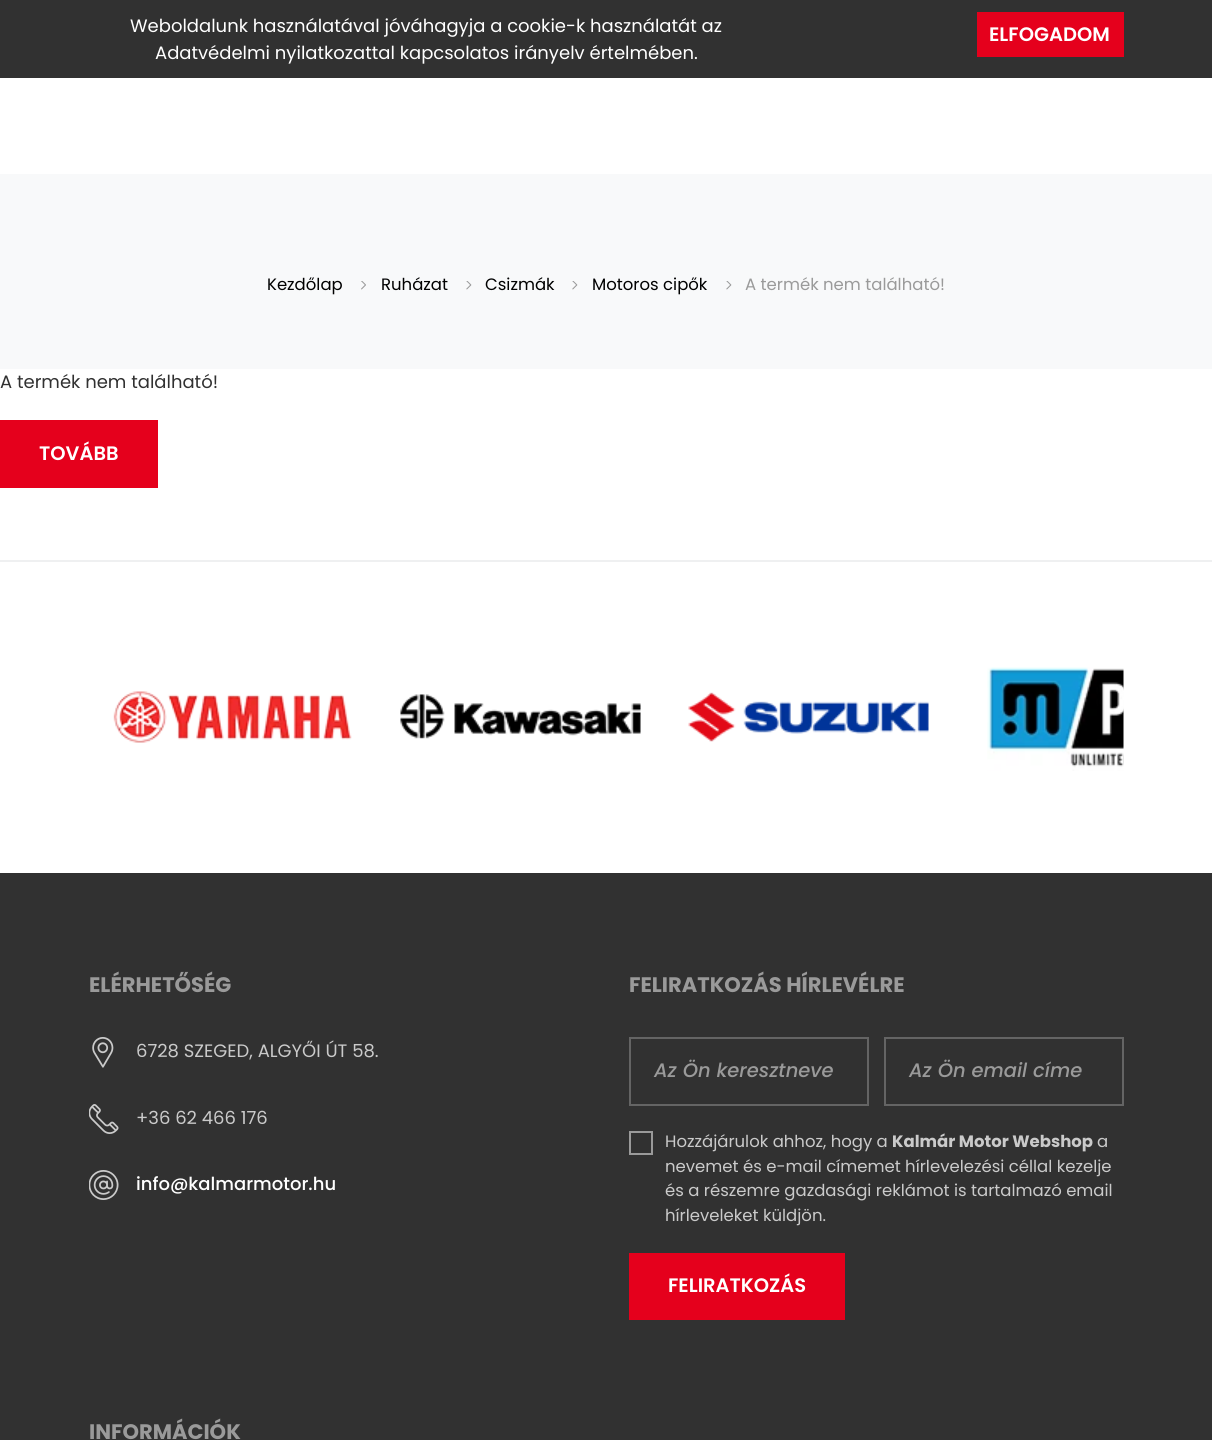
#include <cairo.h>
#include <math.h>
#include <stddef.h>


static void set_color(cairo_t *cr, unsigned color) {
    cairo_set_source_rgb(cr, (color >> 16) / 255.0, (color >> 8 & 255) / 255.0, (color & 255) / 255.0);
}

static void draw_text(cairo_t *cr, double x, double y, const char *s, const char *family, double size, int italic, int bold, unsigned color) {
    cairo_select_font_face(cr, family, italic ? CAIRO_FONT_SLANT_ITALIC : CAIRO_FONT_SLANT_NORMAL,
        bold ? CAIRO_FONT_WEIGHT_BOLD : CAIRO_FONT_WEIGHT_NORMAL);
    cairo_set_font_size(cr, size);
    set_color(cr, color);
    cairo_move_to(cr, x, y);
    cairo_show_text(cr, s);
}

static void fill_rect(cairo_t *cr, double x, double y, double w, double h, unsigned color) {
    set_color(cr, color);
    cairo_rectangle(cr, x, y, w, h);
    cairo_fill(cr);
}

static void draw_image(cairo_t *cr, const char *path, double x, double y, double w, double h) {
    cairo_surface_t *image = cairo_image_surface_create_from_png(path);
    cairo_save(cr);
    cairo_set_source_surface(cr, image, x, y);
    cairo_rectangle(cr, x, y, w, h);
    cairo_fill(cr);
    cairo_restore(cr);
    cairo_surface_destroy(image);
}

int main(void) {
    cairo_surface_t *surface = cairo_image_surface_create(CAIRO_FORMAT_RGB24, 1212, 1440);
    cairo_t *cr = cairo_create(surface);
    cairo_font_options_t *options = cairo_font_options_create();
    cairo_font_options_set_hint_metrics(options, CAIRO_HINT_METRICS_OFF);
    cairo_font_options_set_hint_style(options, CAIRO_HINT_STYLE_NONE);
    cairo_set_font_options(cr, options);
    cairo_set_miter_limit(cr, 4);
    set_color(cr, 0xFFFFFF);
    cairo_paint(cr);
    fill_rect(cr, 0, 0, 1212, 78, 0x313131);
    draw_text(cr, 130, 32, "Weboldalunk használatával jóváhagyja a cookie-k használatát az", "Poppins", 18, 0, 0, 0xFFFFFF);
    draw_text(cr, 155, 59, "Adatvédelmi nyilatkozattal kapcsolatos irányelv értelmében.", "Poppins", 18, 0, 0, 0xFFFFFF);
    fill_rect(cr, 977, 12, 147, 45, 0xE5001C);
    draw_text(cr, 989, 41, "ELFOGADOM", "Poppins SemiBold", 19.5, 0, 0, 0xFFFFFF);
    fill_rect(cr, 0, 174, 1212, 195, 0xF8F9FA);
    draw_text(cr, 267, 290, "Kezdőlap", "Poppins", 16.5, 0, 0, 0x000000);
    draw_image(cr, "assets/img1.png", 361, 281, 5, 9);
    draw_text(cr, 381, 290, "Ruházat", "Poppins", 16.5, 0, 0, 0x000000);
    draw_image(cr, "assets/img2.png", 466, 281, 6, 9);
    draw_text(cr, 485, 290, "Csizmák", "Poppins", 16.5, 0, 0, 0x000000);
    draw_image(cr, "assets/img3.png", 572, 281, 6, 9);
    draw_text(cr, 592, 290, "Motoros cipők", "Poppins", 16.5, 0, 0, 0x000000);
    draw_image(cr, "assets/img4.png", 726, 281, 6, 9);
    draw_text(cr, 745, 290, "A termék nem található!", "Poppins", 16.5, 0, 0, 0x9A9A9A);
    draw_text(cr, 0, 388, "A termék nem található!", "Poppins", 18, 0, 0, 0x313131);
    fill_rect(cr, 0, 420, 158, 68, 0xE5001C);
    draw_text(cr, 39, 460, "TOVÁBB", "Poppins SemiBold", 19.5, 0, 0, 0xFFFFFF);
    fill_rect(cr, 0, 560, 1212, 2, 0xEFF0F1);
    draw_image(cr, "assets/img5.png", 113, 691, 239, 52);
    draw_image(cr, "assets/img6.png", 400, 694, 241, 45);
    draw_image(cr, "assets/img7.png", 688, 692, 241, 50);
    draw_image(cr, "assets/img8.png", 987, 667, 137, 104);
    fill_rect(cr, 0, 873, 1212, 567, 0x313131);
    draw_text(cr, 89, 992, "ELÉRHETŐSÉG", "Poppins", 21, 0, 1, 0x9A9A9A);
    draw_image(cr, "assets/img9.png", 92, 1037, 22, 31);
    draw_text(cr, 136, 1057, "6728 SZEGED, ALGYŐI ÚT 58.", "Poppins", 18, 0, 0, 0xCACACA);
    draw_image(cr, "assets/img10.png", 89, 1104, 30, 30);
    draw_text(cr, 136, 1124, "+36 62 466 176", "Poppins", 18, 0, 0, 0xCACACA);
    draw_image(cr, "assets/img11.png", 89, 1170, 30, 30);
    draw_text(cr, 136, 1190, "info@kalmarmotor.hu", "Poppins Medium", 18, 0, 0, 0xFFFFFF);
    draw_text(cr, 629, 992, "FELIRATKOZÁS HÍRLEVÉLRE", "Poppins", 21, 0, 1, 0x9A9A9A);
    cairo_rectangle(cr, 630, 1038, 238, 67);
    set_color(cr, 0x646464);
    cairo_stroke(cr);
    draw_text(cr, 654, 1077, "Az Ön keresztneve", "Poppins Medium", 19.5, 1, 0, 0x9A9A9A);
    cairo_rectangle(cr, 885, 1038, 238, 67);
    set_color(cr, 0x646464);
    cairo_stroke(cr);
    draw_text(cr, 909, 1077, "Az Ön email címe", "Poppins Medium", 19.5, 1, 0, 0x9A9A9A);
    cairo_rectangle(cr, 630, 1132, 22, 22);
    cairo_stroke(cr);
    draw_text(cr, 665, 1147, "Hozzájárulok ahhoz, hogy a", "Poppins", 16.5, 0, 0, 0xCACACA);
    draw_text(cr, 892, 1147, "Kalmár Motor Webshop", "Poppins", 16.5, 0, 1, 0xCACACA);
    draw_text(cr, 1097, 1147, "a", "Poppins", 16.5, 0, 0, 0xCACACA);
    draw_text(cr, 665, 1172, "nevemet és e-mail címemet hírlevelezési céllal kezelje", "Poppins", 16.5, 0, 0, 0xCACACA);
    draw_text(cr, 665, 1196, "és a részemre gazdasági reklámot is tartalmazó email", "Poppins", 16.5, 0, 0, 0xCACACA);
    draw_text(cr, 665, 1221, "hírleveleket küldjön.", "Poppins", 16.5, 0, 0, 0xCACACA);
    fill_rect(cr, 629, 1253, 216, 67, 0xE5001C);
    draw_text(cr, 668, 1292, "FELIRATKOZÁS", "Poppins SemiBold", 19.5, 0, 0, 0xFFFFFF);
    draw_text(cr, 89, 1439, "INFORMÁCIÓK", "Poppins", 21, 0, 1, 0x9A9A9A);
    cairo_surface_write_to_png(surface, "output.png");
    cairo_font_options_destroy(options);
    cairo_destroy(cr);
    cairo_surface_destroy(surface);
    return 0;
}
